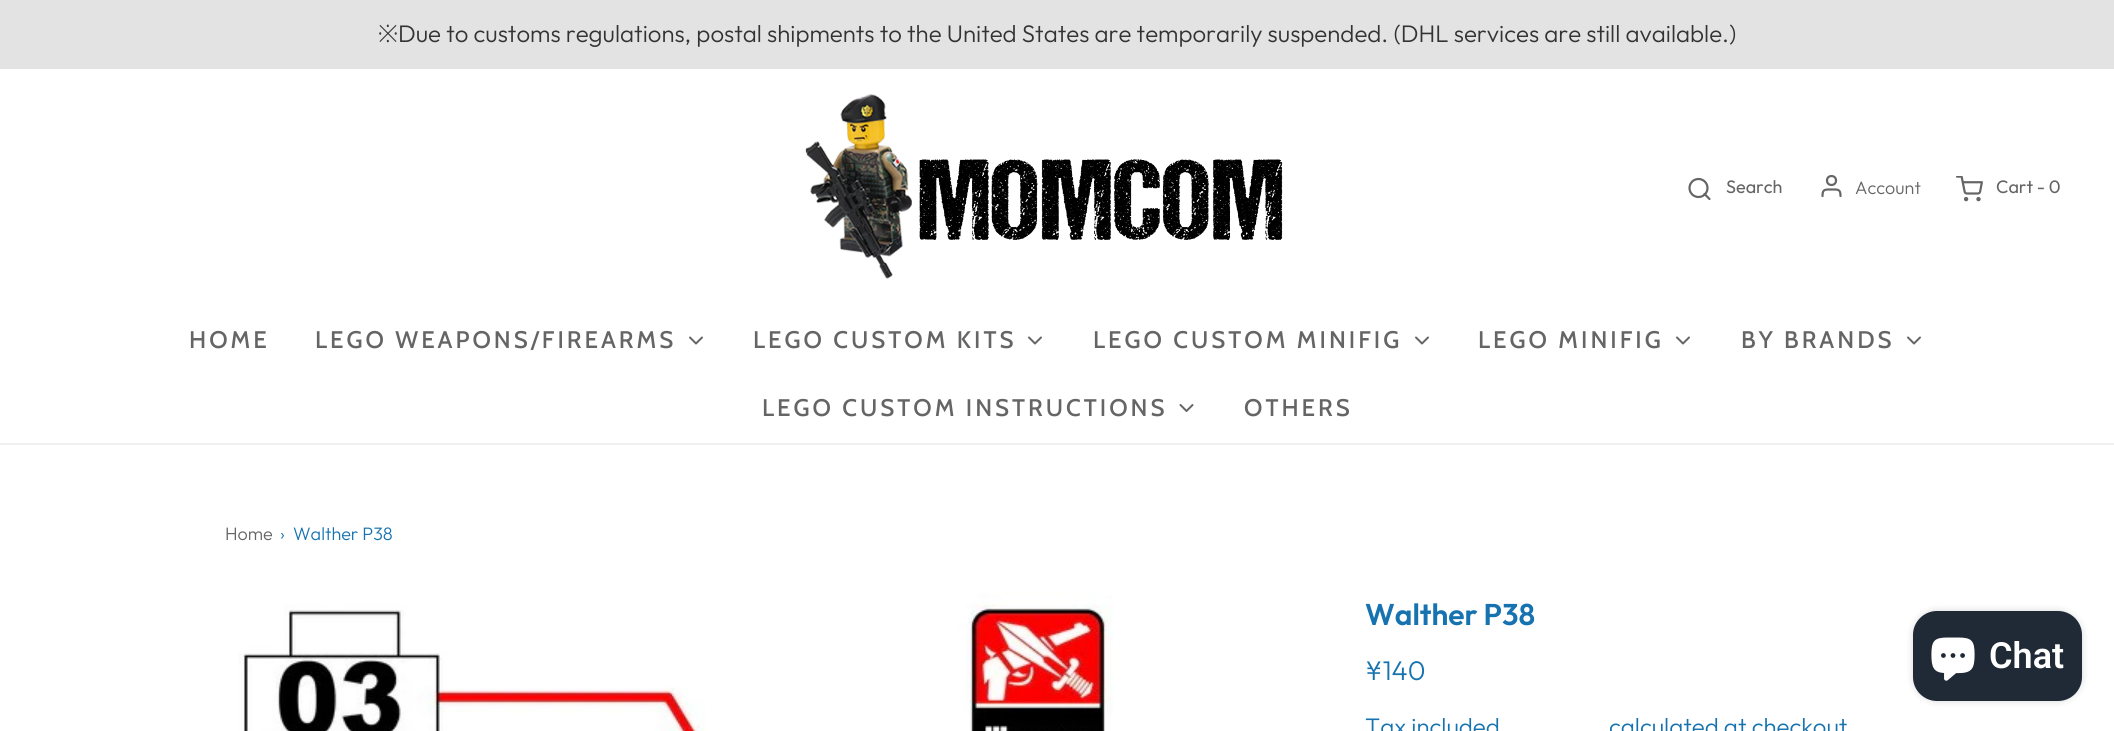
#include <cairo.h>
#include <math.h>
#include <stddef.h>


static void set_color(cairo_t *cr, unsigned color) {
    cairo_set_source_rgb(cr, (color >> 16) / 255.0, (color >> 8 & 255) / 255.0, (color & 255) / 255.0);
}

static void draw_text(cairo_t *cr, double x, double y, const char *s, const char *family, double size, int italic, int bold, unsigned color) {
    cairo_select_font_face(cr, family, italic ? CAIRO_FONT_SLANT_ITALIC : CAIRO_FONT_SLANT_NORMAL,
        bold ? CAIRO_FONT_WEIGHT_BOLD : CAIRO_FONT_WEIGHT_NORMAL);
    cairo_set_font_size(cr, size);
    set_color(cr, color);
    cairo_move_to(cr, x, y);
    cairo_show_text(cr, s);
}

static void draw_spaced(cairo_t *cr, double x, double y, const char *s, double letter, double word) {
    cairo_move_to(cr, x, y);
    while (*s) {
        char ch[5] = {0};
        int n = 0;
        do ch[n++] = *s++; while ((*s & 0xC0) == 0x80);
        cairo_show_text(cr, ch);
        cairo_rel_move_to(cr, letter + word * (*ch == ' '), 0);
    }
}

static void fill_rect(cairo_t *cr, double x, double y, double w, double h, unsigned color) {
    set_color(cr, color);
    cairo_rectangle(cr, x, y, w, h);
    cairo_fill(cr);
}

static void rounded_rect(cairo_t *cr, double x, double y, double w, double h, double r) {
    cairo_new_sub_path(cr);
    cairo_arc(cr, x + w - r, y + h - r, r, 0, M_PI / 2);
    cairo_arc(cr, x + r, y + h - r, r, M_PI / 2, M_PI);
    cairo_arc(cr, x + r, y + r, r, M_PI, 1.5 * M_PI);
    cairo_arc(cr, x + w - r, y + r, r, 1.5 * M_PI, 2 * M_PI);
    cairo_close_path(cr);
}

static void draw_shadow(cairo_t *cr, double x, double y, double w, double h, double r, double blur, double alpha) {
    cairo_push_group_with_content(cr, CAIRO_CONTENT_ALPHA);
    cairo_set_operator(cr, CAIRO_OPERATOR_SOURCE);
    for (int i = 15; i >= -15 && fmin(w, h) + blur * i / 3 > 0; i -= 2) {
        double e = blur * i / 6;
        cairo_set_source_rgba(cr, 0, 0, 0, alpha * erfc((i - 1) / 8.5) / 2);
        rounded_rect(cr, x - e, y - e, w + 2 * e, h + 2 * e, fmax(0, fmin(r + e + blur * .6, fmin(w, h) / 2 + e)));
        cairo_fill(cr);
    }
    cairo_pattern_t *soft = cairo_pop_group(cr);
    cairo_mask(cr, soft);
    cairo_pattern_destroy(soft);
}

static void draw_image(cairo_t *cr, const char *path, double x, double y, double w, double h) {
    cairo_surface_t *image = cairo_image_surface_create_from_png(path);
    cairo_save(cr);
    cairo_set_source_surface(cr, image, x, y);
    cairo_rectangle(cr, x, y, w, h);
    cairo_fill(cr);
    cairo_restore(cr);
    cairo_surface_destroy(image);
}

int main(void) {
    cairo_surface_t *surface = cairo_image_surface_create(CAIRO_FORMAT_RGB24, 2114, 731);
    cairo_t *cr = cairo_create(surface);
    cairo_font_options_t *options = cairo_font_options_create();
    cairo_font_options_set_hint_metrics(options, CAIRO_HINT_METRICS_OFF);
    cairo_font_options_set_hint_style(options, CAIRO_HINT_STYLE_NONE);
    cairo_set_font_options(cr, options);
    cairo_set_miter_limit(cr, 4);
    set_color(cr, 0xFFFFFF);
    cairo_paint(cr);
    fill_rect(cr, 0, 0, 2114, 69, 0xE3E3E3);
    draw_text(cr, 378, 42, "※", "Noto Sans Light", 24, 0, 0, 0x333333);
    draw_text(cr, 398, 42, "Due to customs regulations, postal shipments to the United States are temporarily suspended. (DHL services are still available.)", "Outfit Light", 24, 0, 0, 0x333333);
    fill_rect(cr, 0, 443, 2114, 2, 0xF0F0F0);
    draw_image(cr, "assets/img1.png", 805, 94, 478, 185);
    cairo_arc(cr, 1698.5, 188, 9, 0, 2 * M_PI);
    set_color(cr, 0x656565);
    cairo_set_line_width(cr, 2.2);
    cairo_stroke(cr);
    draw_text(cr, 1726, 193, "Search", "Outfit", 18, 0, 0, 0x656565);
    cairo_new_path(cr);
    cairo_move_to(cr, 1709.5, 199);
    cairo_line_to(cr, 1704.5, 194);
    cairo_set_line_cap(cr, CAIRO_LINE_CAP_ROUND);
    cairo_set_line_join(cr, CAIRO_LINE_JOIN_ROUND);
    cairo_stroke(cr);
    cairo_new_path(cr);
    cairo_move_to(cr, 1840.5, 196);
    cairo_curve_to(cr, 1840.5, 189, 1838, 189.5, 1831.5, 189.5);
    cairo_curve_to(cr, 1825, 189.5, 1822.5, 189, 1822.5, 196);
    cairo_stroke(cr);
    cairo_arc(cr, 1831.5, 180.5, 4.5, 0, 2 * M_PI);
    cairo_set_line_cap(cr, CAIRO_LINE_CAP_BUTT);
    cairo_set_line_join(cr, CAIRO_LINE_JOIN_MITER);
    cairo_stroke(cr);
    draw_text(cr, 1855, 194, "Account", "Outfit Light", 18, 0, 0, 0x656565);
    draw_image(cr, "assets/img2.png", 1956, 176, 27, 26);
    draw_text(cr, 1996, 193, "Cart - 0", "Outfit", 18, 0, 0, 0x656565);
    cairo_select_font_face(cr, "Cabin Medium", CAIRO_FONT_SLANT_NORMAL, CAIRO_FONT_WEIGHT_NORMAL);
    cairo_set_font_size(cr, 24);
    draw_spaced(cr, 189, 348, "HOME", 3, 0);
    draw_spaced(cr, 315, 348, "LEGO WEAPONS/FIREARMS", 3, 0);
    cairo_new_path(cr);
    cairo_move_to(cr, 690, 337.5);
    cairo_line_to(cr, 696, 343.5);
    cairo_line_to(cr, 702, 337.5);
    cairo_set_line_width(cr, 2);
    cairo_set_line_cap(cr, CAIRO_LINE_CAP_ROUND);
    cairo_set_line_join(cr, CAIRO_LINE_JOIN_ROUND);
    cairo_stroke(cr);
    draw_spaced(cr, 753, 348, "LEGO CUSTOM KITS", 3, 0);
    cairo_new_path(cr);
    cairo_move_to(cr, 1029, 337.5);
    cairo_line_to(cr, 1035, 343.5);
    cairo_line_to(cr, 1041, 337.5);
    cairo_stroke(cr);
    draw_spaced(cr, 1093, 348, "LEGO CUSTOM MINIFIG", 3, 0);
    cairo_new_path(cr);
    cairo_move_to(cr, 1416, 337.5);
    cairo_line_to(cr, 1422, 343.5);
    cairo_line_to(cr, 1428, 337.5);
    cairo_stroke(cr);
    draw_spaced(cr, 1478, 348, "LEGO MINIFIG", 3, 0);
    cairo_new_path(cr);
    cairo_move_to(cr, 1677, 337.5);
    cairo_line_to(cr, 1683, 343.5);
    cairo_line_to(cr, 1689, 337.5);
    cairo_stroke(cr);
    draw_spaced(cr, 1741, 348, "BY BRANDS", 3, 0);
    cairo_new_path(cr);
    cairo_move_to(cr, 1908, 337.5);
    cairo_line_to(cr, 1914, 343.5);
    cairo_line_to(cr, 1920, 337.5);
    cairo_stroke(cr);
    draw_spaced(cr, 762, 416, "LEGO CUSTOM INSTRUCTIONS", 3, 0);
    cairo_new_path(cr);
    cairo_move_to(cr, 1180.5, 405);
    cairo_line_to(cr, 1186.5, 411);
    cairo_line_to(cr, 1192.5, 405);
    cairo_stroke(cr);
    draw_spaced(cr, 1244, 416, "OTHERS", 3, 0);
    draw_text(cr, 225, 540, "Home", "Outfit Light", 18, 0, 0, 0x656565);
    draw_text(cr, 280, 540, "›", "Outfit Light", 18, 0, 0, 0x1773B0);
    draw_text(cr, 293, 540, "Walther P38", "Outfit Light", 18, 0, 0, 0x1773B0);
    draw_image(cr, "assets/img3.png", 238, 593, 875, 138);
    draw_text(cr, 1365, 625, "Walther P38", "Outfit SemiBold", 30, 0, 0, 0x1773B0);
    draw_text(cr, 1365, 680, "¥140", "Outfit Light", 27, 0, 0, 0x1773B0);
    draw_text(cr, 1365, 735, "Tax included", "Outfit Light", 24, 0, 0, 0x1773B0);
    draw_text(cr, 1609, 735, "calculated at checkout", "Outfit Light", 24, 0, 0, 0x1773B0);
    set_color(cr, 0x000000);
    draw_shadow(cr, 1913, 611, 169, 90, 24, 4, 0.15);
    set_color(cr, 0x202A36);
    rounded_rect(cr, 1913, 611, 169, 90, 24);
    cairo_fill(cr);
    draw_image(cr, "assets/img4.png", 1931, 637, 44, 44);
    draw_text(cr, 1989, 668, "Chat", "Roboto SemiBold", 36, 0, 0, 0xFFFFFF);
    cairo_surface_write_to_png(surface, "output.png");
    cairo_font_options_destroy(options);
    cairo_destroy(cr);
    cairo_surface_destroy(surface);
    return 0;
}
